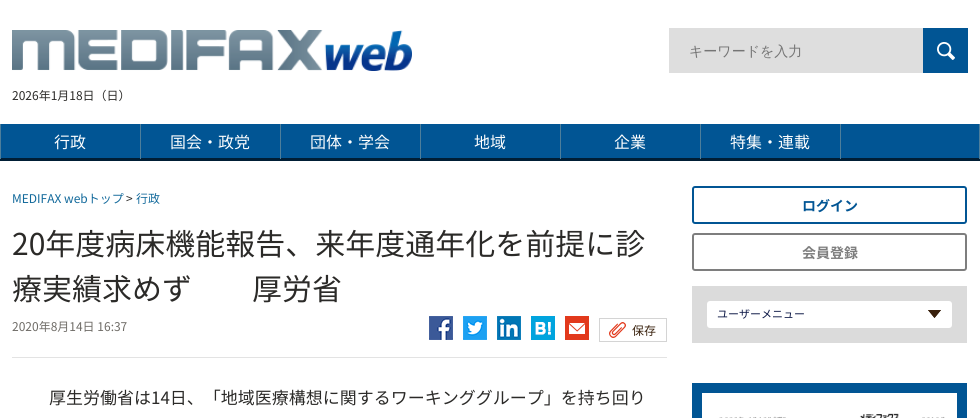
#include <cairo.h>
#include <math.h>
#include <stddef.h>


static void set_color(cairo_t *cr, unsigned color) {
    cairo_set_source_rgb(cr, (color >> 16) / 255.0, (color >> 8 & 255) / 255.0, (color & 255) / 255.0);
}

static void draw_text(cairo_t *cr, double x, double y, const char *s, const char *family, double size, int italic, int bold, unsigned color) {
    cairo_select_font_face(cr, family, italic ? CAIRO_FONT_SLANT_ITALIC : CAIRO_FONT_SLANT_NORMAL,
        bold ? CAIRO_FONT_WEIGHT_BOLD : CAIRO_FONT_WEIGHT_NORMAL);
    cairo_set_font_size(cr, size);
    set_color(cr, color);
    cairo_move_to(cr, x, y);
    cairo_show_text(cr, s);
}

static void fill_rect(cairo_t *cr, double x, double y, double w, double h, unsigned color) {
    set_color(cr, color);
    cairo_rectangle(cr, x, y, w, h);
    cairo_fill(cr);
}

static void rounded_rect(cairo_t *cr, double x, double y, double w, double h, double r) {
    cairo_new_sub_path(cr);
    cairo_arc(cr, x + w - r, y + h - r, r, 0, M_PI / 2);
    cairo_arc(cr, x + r, y + h - r, r, M_PI / 2, M_PI);
    cairo_arc(cr, x + r, y + r, r, M_PI, 1.5 * M_PI);
    cairo_arc(cr, x + w - r, y + r, r, 1.5 * M_PI, 2 * M_PI);
    cairo_close_path(cr);
}

static void draw_image(cairo_t *cr, const char *path, double x, double y, double w, double h) {
    cairo_surface_t *image = cairo_image_surface_create_from_png(path);
    cairo_save(cr);
    cairo_set_source_surface(cr, image, x, y);
    cairo_rectangle(cr, x, y, w, h);
    cairo_fill(cr);
    cairo_restore(cr);
    cairo_surface_destroy(image);
}

int main(void) {
    cairo_surface_t *surface = cairo_image_surface_create(CAIRO_FORMAT_RGB24, 980, 418);
    cairo_t *cr = cairo_create(surface);
    cairo_font_options_t *options = cairo_font_options_create();
    cairo_font_options_set_hint_metrics(options, CAIRO_HINT_METRICS_OFF);
    cairo_font_options_set_hint_style(options, CAIRO_HINT_STYLE_NONE);
    cairo_set_font_options(cr, options);
    cairo_set_miter_limit(cr, 4);
    set_color(cr, 0xFFFFFF);
    cairo_paint(cr);
    draw_image(cr, "assets/img1.png", 12, 30, 400, 41);
    fill_rect(cr, 669, 28, 254, 45, 0xDEDEDE);
    draw_text(cr, 689, 56, "キーワードを入力", "WenQuanYi Zen Hei Medium", 14, 0, 0, 0x757575);
    fill_rect(cr, 923, 28, 45, 45, 0x015594);
    draw_image(cr, "assets/img2.png", 937, 42, 18, 18);
    draw_text(cr, 12, 100, "2026年1月18日（日）", "Noto Sans JP", 12, 0, 0, 0x2B2A28);
    fill_rect(cr, 1, 124, 978, 34, 0x015594);
    fill_rect(cr, 0, 158, 980, 3, 0x001E35);
    fill_rect(cr, 0, 124, 1, 35, 0x4D7E9B);
    draw_text(cr, 54, 148, "行政", "Noto Sans JP", 16, 0, 0, 0xFFFFFF);
    fill_rect(cr, 140, 124, 1, 35, 0x4D7E9B);
    draw_text(cr, 170, 148, "国会・政党", "Noto Sans JP", 16, 0, 0, 0xFFFFFF);
    fill_rect(cr, 280, 124, 1, 35, 0x4D7E9B);
    draw_text(cr, 310, 148, "団体・学会", "Noto Sans JP", 16, 0, 0, 0xFFFFFF);
    fill_rect(cr, 420, 124, 1, 35, 0x4D7E9B);
    draw_text(cr, 474, 148, "地域", "Noto Sans JP", 16, 0, 0, 0xFFFFFF);
    fill_rect(cr, 560, 124, 1, 35, 0x4D7E9B);
    draw_text(cr, 614, 148, "企業", "Noto Sans JP", 16, 0, 0, 0xFFFFFF);
    fill_rect(cr, 700, 124, 1, 35, 0x4D7E9B);
    draw_text(cr, 730, 148, "特集・連載", "Noto Sans JP", 16, 0, 0, 0xFFFFFF);
    fill_rect(cr, 840, 124, 1, 35, 0x4D7E9B);
    fill_rect(cr, 979, 124, 1, 35, 0x4D7E9B);
    draw_text(cr, 12, 203, "MEDIFAX webトップ", "Noto Sans JP", 12, 0, 0, 0x12699B);
    draw_text(cr, 126, 203, ">", "Noto Sans JP", 12, 0, 0, 0x2B2A28);
    draw_text(cr, 136, 203, "行政", "Noto Sans JP", 12, 0, 0, 0x12699B);
    fill_rect(cr, 12, 357, 655, 1, 0xE3E3E3);
    draw_text(cr, 12, 255, "20年度病床機能報告、来年度通年化を前提に診", "Noto Sans JP", 30, 0, 0, 0x2B2A28);
    draw_text(cr, 12, 300, "療実績求めず　　厚労省", "Noto Sans JP", 30, 0, 0, 0x2B2A28);
    draw_text(cr, 12, 331, "2020年8月14日 16:37", "Noto Sans JP", 12, 0, 0, 0x6E6B66);
    draw_image(cr, "assets/img3.png", 429, 316, 24, 24);
    draw_image(cr, "assets/img4.png", 463, 316, 24, 24);
    draw_image(cr, "assets/img5.png", 497, 316, 24, 24);
    draw_image(cr, "assets/img6.png", 531, 316, 24, 24);
    draw_image(cr, "assets/img7.png", 565, 316, 24, 24);
    cairo_rectangle(cr, 599.5, 318.5, 67, 23);
    set_color(cr, 0xD4D4D4);
    cairo_set_line_width(cr, 1);
    cairo_stroke(cr);
    draw_image(cr, "assets/img8.png", 609, 322, 17, 16);
    draw_text(cr, 632, 335, "保存", "Noto Sans JP", 12, 0, 0, 0x38200C);
    draw_text(cr, 49, 404, "厚生労働省は14日、「地域医療構想に関するワーキンググループ」を持ち回り", "Noto Sans JP", 17, 0, 0, 0x2B2A28);
    rounded_rect(cr, 693, 187, 273, 36, 2);
    set_color(cr, 0x015594);
    cairo_set_line_width(cr, 2);
    cairo_stroke(cr);
    draw_text(cr, 802, 211, "ログイン", "Noto Sans JP", 14, 0, 1, 0x015594);
    rounded_rect(cr, 693, 234, 273, 36, 2);
    set_color(cr, 0x7E7E7E);
    cairo_stroke(cr);
    draw_text(cr, 802, 258, "会員登録", "Noto Sans JP", 14, 0, 1, 0x7E7E7E);
    fill_rect(cr, 692, 286, 275, 57, 0xDBDBDB);
    set_color(cr, 0xFFFFFF);
    rounded_rect(cr, 707, 301, 245, 27, 3);
    cairo_fill(cr);
    draw_text(cr, 717, 318, "ユーザーメニュー", "Noto Sans JP", 11, 0, 0, 0x0D1846);
    draw_image(cr, "assets/img9.png", 928, 310, 13, 8);
    draw_image(cr, "assets/img10.png", 928, 310, 13, 8);
    fill_rect(cr, 692, 383, 275, 35, 0x015594);
    draw_image(cr, "assets/img11.png", 702, 393, 255, 25);
    cairo_surface_write_to_png(surface, "output.png");
    cairo_font_options_destroy(options);
    cairo_destroy(cr);
    cairo_surface_destroy(surface);
    return 0;
}
